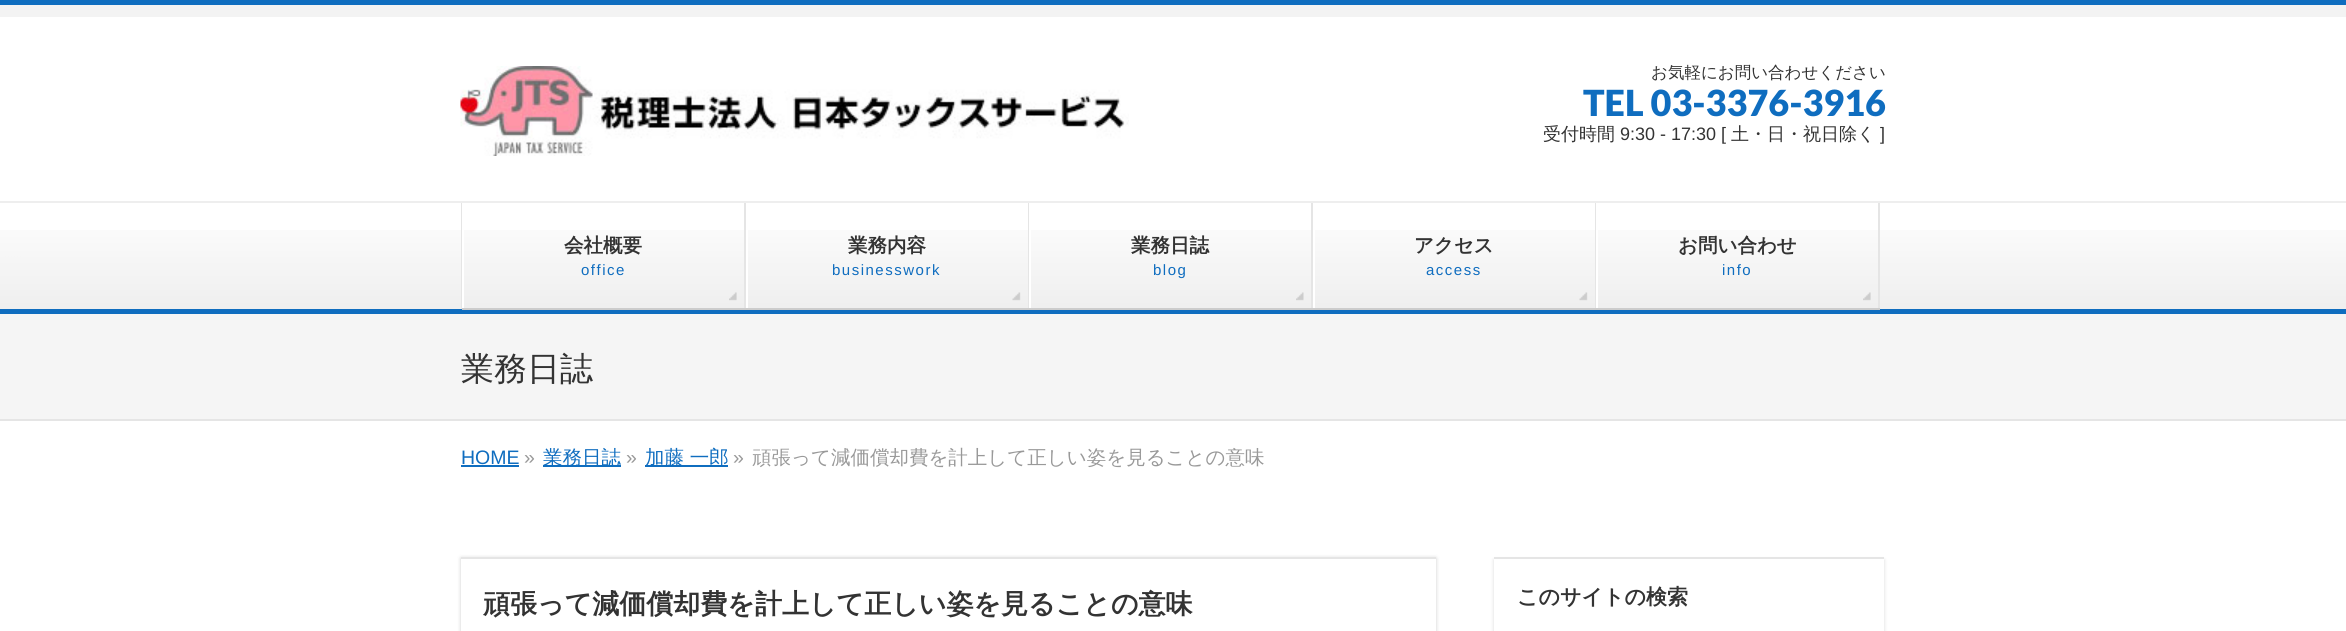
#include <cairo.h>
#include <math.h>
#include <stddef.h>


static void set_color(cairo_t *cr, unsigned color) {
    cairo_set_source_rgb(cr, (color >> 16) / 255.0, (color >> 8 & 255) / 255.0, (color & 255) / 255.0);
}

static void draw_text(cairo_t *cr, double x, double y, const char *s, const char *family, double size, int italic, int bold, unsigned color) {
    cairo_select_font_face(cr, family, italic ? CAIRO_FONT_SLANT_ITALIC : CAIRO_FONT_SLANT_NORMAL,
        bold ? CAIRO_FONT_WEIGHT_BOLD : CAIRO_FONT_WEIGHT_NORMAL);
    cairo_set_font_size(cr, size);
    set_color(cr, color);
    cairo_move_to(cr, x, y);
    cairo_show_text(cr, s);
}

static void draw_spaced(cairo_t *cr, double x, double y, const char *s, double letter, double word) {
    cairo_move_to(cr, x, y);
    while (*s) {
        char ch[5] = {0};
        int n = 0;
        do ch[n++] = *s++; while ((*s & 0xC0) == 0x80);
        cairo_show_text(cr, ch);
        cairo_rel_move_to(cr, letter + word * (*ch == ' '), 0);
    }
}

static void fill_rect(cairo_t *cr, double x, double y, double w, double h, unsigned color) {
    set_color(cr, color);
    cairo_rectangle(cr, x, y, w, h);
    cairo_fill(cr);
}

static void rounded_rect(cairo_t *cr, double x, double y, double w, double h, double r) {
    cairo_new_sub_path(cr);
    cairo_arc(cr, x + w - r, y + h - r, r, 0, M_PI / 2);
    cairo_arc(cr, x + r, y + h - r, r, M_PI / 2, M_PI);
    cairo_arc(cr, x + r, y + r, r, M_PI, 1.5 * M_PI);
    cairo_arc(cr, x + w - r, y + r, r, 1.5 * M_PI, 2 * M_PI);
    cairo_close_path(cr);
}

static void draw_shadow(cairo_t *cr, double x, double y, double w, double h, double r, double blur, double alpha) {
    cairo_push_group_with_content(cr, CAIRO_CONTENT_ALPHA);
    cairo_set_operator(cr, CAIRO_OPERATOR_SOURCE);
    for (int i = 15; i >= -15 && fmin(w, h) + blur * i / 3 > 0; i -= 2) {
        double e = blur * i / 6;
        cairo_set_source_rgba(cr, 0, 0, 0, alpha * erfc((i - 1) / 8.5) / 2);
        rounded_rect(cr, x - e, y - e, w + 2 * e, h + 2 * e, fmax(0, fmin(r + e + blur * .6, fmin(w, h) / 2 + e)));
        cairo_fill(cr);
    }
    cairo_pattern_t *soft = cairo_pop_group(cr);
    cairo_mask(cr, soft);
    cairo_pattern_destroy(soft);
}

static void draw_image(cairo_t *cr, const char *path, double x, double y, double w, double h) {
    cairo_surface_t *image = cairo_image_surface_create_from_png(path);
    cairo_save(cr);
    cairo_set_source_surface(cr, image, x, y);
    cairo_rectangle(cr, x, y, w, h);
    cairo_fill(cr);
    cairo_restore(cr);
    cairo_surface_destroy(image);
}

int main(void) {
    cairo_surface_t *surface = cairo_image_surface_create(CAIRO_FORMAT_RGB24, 2346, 631);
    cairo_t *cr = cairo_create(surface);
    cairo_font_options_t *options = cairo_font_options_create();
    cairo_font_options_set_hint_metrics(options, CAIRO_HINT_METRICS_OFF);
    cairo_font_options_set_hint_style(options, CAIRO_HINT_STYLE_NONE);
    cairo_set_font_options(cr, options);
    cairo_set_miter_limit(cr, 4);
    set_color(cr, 0xFFFFFF);
    cairo_paint(cr);
    fill_rect(cr, 0, 5, 2346, 12, 0xF3F3F3);
    fill_rect(cr, 0, 0, 2346, 5, 0x0F6DBF);
    draw_image(cr, "assets/img1.png", 460, 66, 669, 90);
    draw_text(cr, 1651, 78, "お気軽にお問い合わせください", "WenQuanYi Zen Hei Medium", 16.5, 0, 0, 0x333333);
    draw_text(cr, 1583, 116, "TEL 03-3376-3916", "Lato Black", 36, 0, 0, 0x0F6DBF);
    draw_text(cr, 1543, 140, "受付時間", "WenQuanYi Zen Hei Medium", 18, 0, 0, 0x333333);
    draw_text(cr, 1620, 140, "9:30 - 17:30 [", "Liberation Sans", 18, 0, 0, 0x333333);
    draw_text(cr, 1731, 140, "土・日・祝日除く", "WenQuanYi Zen Hei Medium", 18, 0, 0, 0x333333);
    draw_text(cr, 1880, 140, "]", "Liberation Sans", 18, 0, 0, 0x333333);
    draw_image(cr, "assets/img2.png", 0, 230, 2346, 79);
    fill_rect(cr, 0, 201, 2346, 2, 0xEEEEEE);
    fill_rect(cr, 0, 309, 2346, 5, 0x0F6DBF);
    fill_rect(cr, 461, 203, 1, 106, 0xE5E5E5);
    fill_rect(cr, 462, 230, 2, 79, 0xFFFFFF);
    draw_image(cr, "assets/img3.png", 729, 292, 8, 9);
    fill_rect(cr, 744, 203, 2, 106, 0xE5E5E5);
    fill_rect(cr, 462, 308, 284, 2, 0xCCCCCC);
    draw_text(cr, 564, 252, "会社概要", "WenQuanYi Zen Hei", 19.5, 0, 1, 0x333333);
    cairo_select_font_face(cr, "Liberation Sans", CAIRO_FONT_SLANT_NORMAL, CAIRO_FONT_WEIGHT_NORMAL);
    cairo_set_font_size(cr, 15);
    set_color(cr, 0x0F6DBF);
    draw_spaced(cr, 581, 275, "office", 1.5, 0);
    fill_rect(cr, 746, 230, 2, 79, 0xFFFFFF);
    draw_image(cr, "assets/img4.png", 1012, 292, 9, 9);
    fill_rect(cr, 1028, 203, 1, 106, 0xE5E5E5);
    fill_rect(cr, 746, 308, 283, 2, 0xCCCCCC);
    draw_text(cr, 848, 252, "業務内容", "WenQuanYi Zen Hei", 19.5, 0, 1, 0x333333);
    cairo_select_font_face(cr, "Liberation Sans", CAIRO_FONT_SLANT_NORMAL, CAIRO_FONT_WEIGHT_NORMAL);
    cairo_set_font_size(cr, 15);
    set_color(cr, 0x0F6DBF);
    draw_spaced(cr, 832, 275, "businesswork", 1.5, 0);
    fill_rect(cr, 1029, 230, 2, 79, 0xFFFFFF);
    draw_image(cr, "assets/img5.png", 1296, 292, 8, 9);
    fill_rect(cr, 1311, 203, 2, 106, 0xE5E5E5);
    fill_rect(cr, 1029, 308, 284, 2, 0xCCCCCC);
    draw_text(cr, 1131, 252, "業務日誌", "WenQuanYi Zen Hei", 19.5, 0, 1, 0x333333);
    cairo_select_font_face(cr, "Liberation Sans", CAIRO_FONT_SLANT_NORMAL, CAIRO_FONT_WEIGHT_NORMAL);
    cairo_set_font_size(cr, 15);
    set_color(cr, 0x0F6DBF);
    draw_spaced(cr, 1153, 275, "blog", 1.5, 0);
    fill_rect(cr, 1313, 230, 2, 79, 0xFFFFFF);
    draw_image(cr, "assets/img4.png", 1579, 292, 9, 9);
    fill_rect(cr, 1595, 203, 1, 106, 0xE5E5E5);
    fill_rect(cr, 1313, 308, 283, 2, 0xCCCCCC);
    draw_text(cr, 1414, 252, "アクセス", "WenQuanYi Zen Hei", 19.5, 0, 1, 0x333333);
    cairo_select_font_face(cr, "Liberation Sans", CAIRO_FONT_SLANT_NORMAL, CAIRO_FONT_WEIGHT_NORMAL);
    cairo_set_font_size(cr, 15);
    set_color(cr, 0x0F6DBF);
    draw_spaced(cr, 1426, 275, "access", 1.5, 0);
    fill_rect(cr, 1596, 230, 2, 79, 0xFFFFFF);
    draw_image(cr, "assets/img3.png", 1863, 292, 8, 9);
    fill_rect(cr, 1878, 203, 2, 106, 0xE5E5E5);
    fill_rect(cr, 1596, 308, 284, 2, 0xCCCCCC);
    draw_text(cr, 1678, 252, "お問い合わせ", "WenQuanYi Zen Hei", 19.5, 0, 1, 0x333333);
    cairo_select_font_face(cr, "Liberation Sans", CAIRO_FONT_SLANT_NORMAL, CAIRO_FONT_WEIGHT_NORMAL);
    cairo_set_font_size(cr, 15);
    set_color(cr, 0x0F6DBF);
    draw_spaced(cr, 1722, 275, "info", 1.5, 0);
    fill_rect(cr, 0, 314, 2346, 105, 0xF5F5F5);
    fill_rect(cr, 0, 419, 2346, 2, 0xE5E5E5);
    draw_text(cr, 461, 380, "業務日誌", "WenQuanYi Zen Hei Medium", 33, 0, 0, 0x333333);
    draw_text(cr, 461, 464, "HOME", "Liberation Sans", 19.5, 0, 0, 0x0F6DBF);
    fill_rect(cr, 461, 465, 58, 2, 0x0F6DBF);
    draw_text(cr, 524, 464, "»", "Liberation Sans", 19.5, 0, 0, 0x999999);
    fill_rect(cr, 543, 465, 78, 2, 0x0F6DBF);
    draw_text(cr, 543, 464, "業務日誌", "WenQuanYi Zen Hei Medium", 19.5, 0, 0, 0x0F6DBF);
    draw_text(cr, 626, 464, "»", "Liberation Sans", 19.5, 0, 0, 0x999999);
    fill_rect(cr, 645, 465, 83, 2, 0x0F6DBF);
    draw_text(cr, 645, 464, "加藤 一郎", "WenQuanYi Zen Hei Medium", 19.5, 0, 0, 0x0F6DBF);
    draw_text(cr, 733, 464, "»", "Liberation Sans", 19.5, 0, 0, 0x999999);
    draw_text(cr, 752, 464, "頑張って減価償却費を計上して正しい姿を見ることの意味", "WenQuanYi Zen Hei Medium", 19.5, 0, 0, 0x999999);
    cairo_save(cr);
    cairo_set_fill_rule(cr, CAIRO_FILL_RULE_EVEN_ODD);
    cairo_new_path(cr);
    cairo_move_to(cr, 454, 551);
    cairo_line_to(cr, 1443, 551);
    cairo_line_to(cr, 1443, 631);
    cairo_line_to(cr, 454, 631);
    cairo_close_path(cr);
    cairo_move_to(cr, 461, 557);
    cairo_line_to(cr, 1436, 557);
    cairo_line_to(cr, 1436, 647);
    cairo_line_to(cr, 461, 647);
    cairo_close_path(cr);
    cairo_clip(cr);
    set_color(cr, 0x000000);
    draw_shadow(cr, 461, 558, 975, 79, 0, 2, 0.2);
    cairo_restore(cr);
    fill_rect(cr, 461, 557, 975, 2, 0xE5E5E5);
    draw_text(cr, 483, 613, "頑張って減価償却費を計上して正しい姿を見ることの意味", "WenQuanYi Zen Hei", 27, 0, 1, 0x333333);
    cairo_save(cr);
    cairo_set_fill_rule(cr, CAIRO_FILL_RULE_EVEN_ODD);
    cairo_new_path(cr);
    cairo_move_to(cr, 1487, 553);
    cairo_line_to(cr, 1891, 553);
    cairo_line_to(cr, 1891, 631);
    cairo_line_to(cr, 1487, 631);
    cairo_close_path(cr);
    cairo_move_to(cr, 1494, 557);
    cairo_line_to(cr, 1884, 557);
    cairo_line_to(cr, 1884, 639);
    cairo_line_to(cr, 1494, 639);
    cairo_close_path(cr);
    cairo_clip(cr);
    set_color(cr, 0x000000);
    draw_shadow(cr, 1494, 560, 390, 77, 0, 2, 0.15);
    cairo_restore(cr);
    fill_rect(cr, 1494, 557, 390, 2, 0xE5E5E5);
    draw_text(cr, 1517, 604, "このサイトの検索", "WenQuanYi Zen Hei", 21, 0, 1, 0x333333);
    cairo_surface_write_to_png(surface, "output.png");
    cairo_font_options_destroy(options);
    cairo_destroy(cr);
    cairo_surface_destroy(surface);
    return 0;
}
